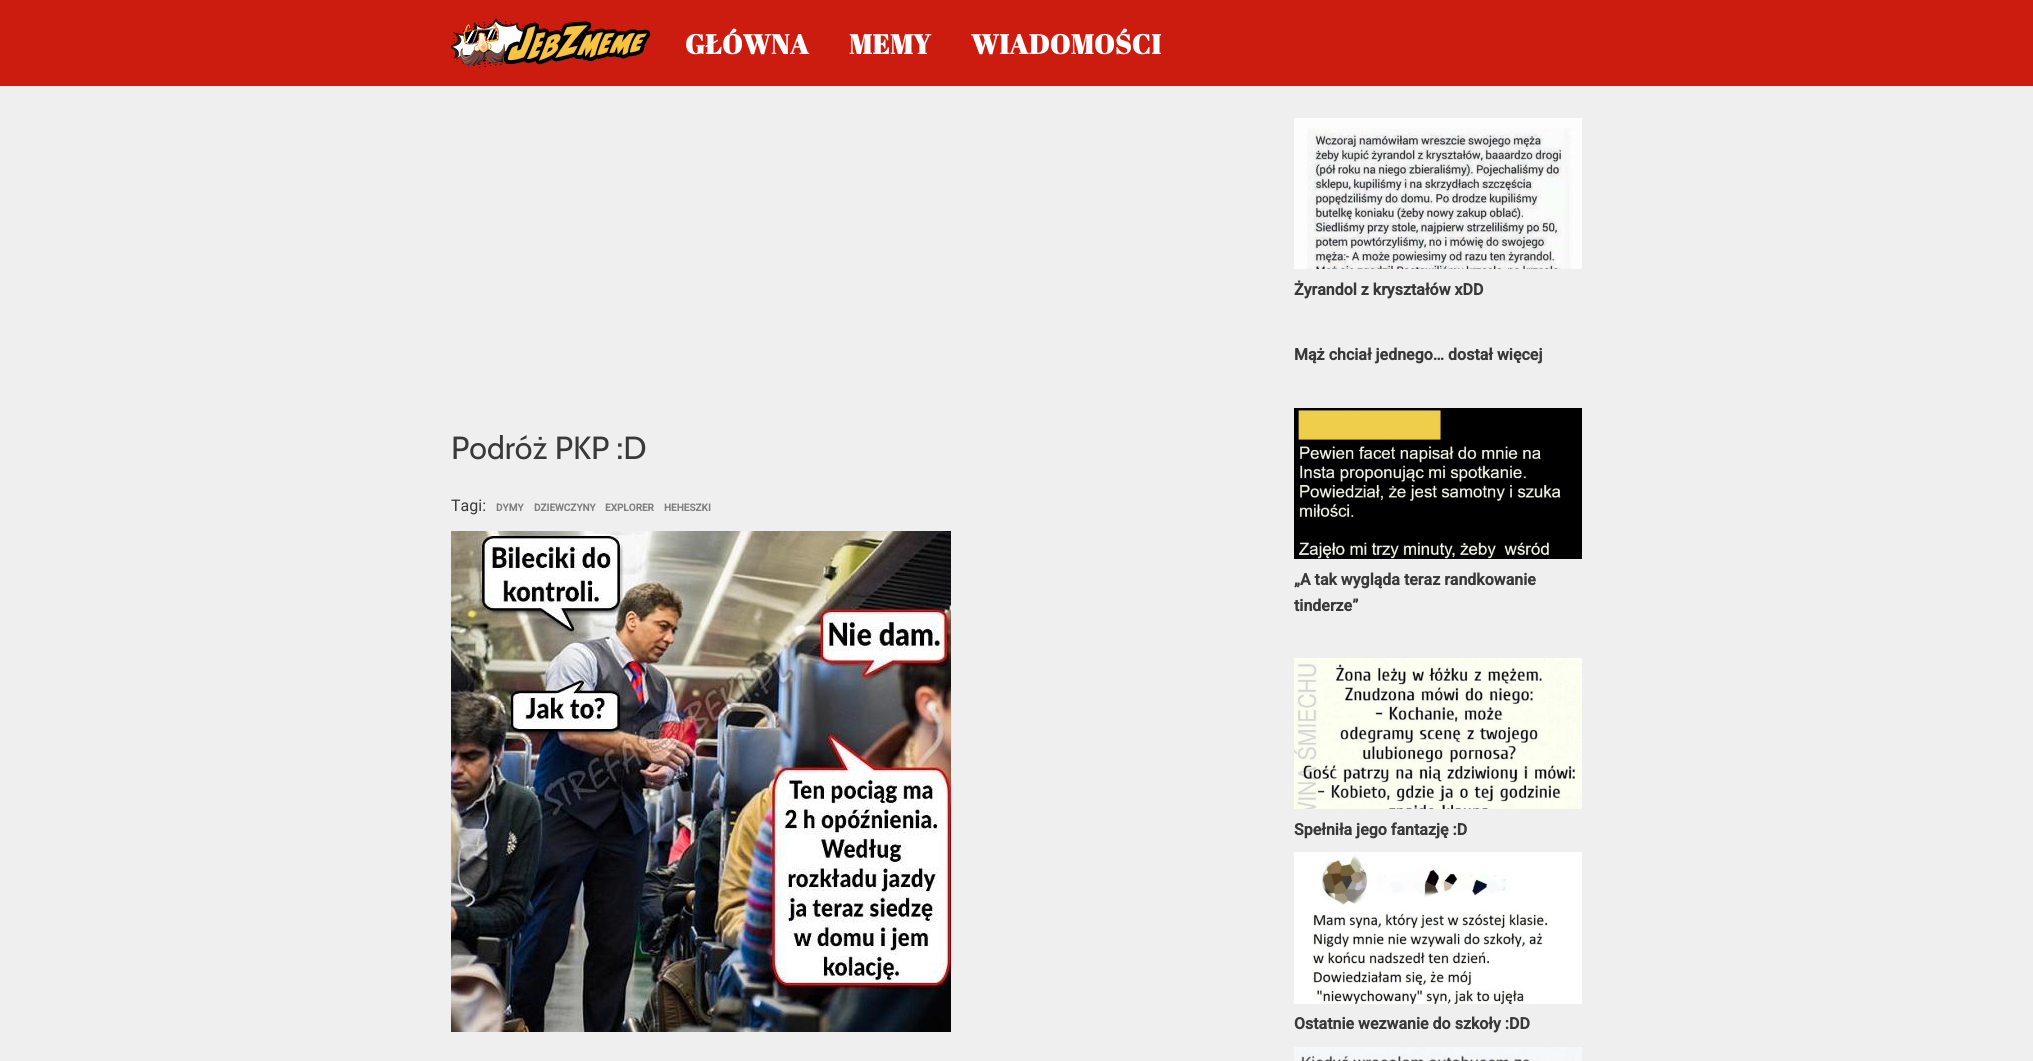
#include <cairo.h>
#include <math.h>
#include <stddef.h>


static void set_color(cairo_t *cr, unsigned color) {
    cairo_set_source_rgb(cr, (color >> 16) / 255.0, (color >> 8 & 255) / 255.0, (color & 255) / 255.0);
}

static void draw_text(cairo_t *cr, double x, double y, const char *s, const char *family, double size, int italic, int bold, unsigned color) {
    cairo_select_font_face(cr, family, italic ? CAIRO_FONT_SLANT_ITALIC : CAIRO_FONT_SLANT_NORMAL,
        bold ? CAIRO_FONT_WEIGHT_BOLD : CAIRO_FONT_WEIGHT_NORMAL);
    cairo_set_font_size(cr, size);
    set_color(cr, color);
    cairo_move_to(cr, x, y);
    cairo_show_text(cr, s);
}

static void draw_spaced(cairo_t *cr, double x, double y, const char *s, double letter, double word) {
    cairo_move_to(cr, x, y);
    while (*s) {
        char ch[5] = {0};
        int n = 0;
        do ch[n++] = *s++; while ((*s & 0xC0) == 0x80);
        cairo_show_text(cr, ch);
        cairo_rel_move_to(cr, letter + word * (*ch == ' '), 0);
    }
}

static void fill_rect(cairo_t *cr, double x, double y, double w, double h, unsigned color) {
    set_color(cr, color);
    cairo_rectangle(cr, x, y, w, h);
    cairo_fill(cr);
}

static void draw_image(cairo_t *cr, const char *path, double x, double y, double w, double h) {
    cairo_surface_t *image = cairo_image_surface_create_from_png(path);
    cairo_save(cr);
    cairo_set_source_surface(cr, image, x, y);
    cairo_rectangle(cr, x, y, w, h);
    cairo_fill(cr);
    cairo_restore(cr);
    cairo_surface_destroy(image);
}

int main(void) {
    cairo_surface_t *surface = cairo_image_surface_create(CAIRO_FORMAT_RGB24, 2033, 1061);
    cairo_t *cr = cairo_create(surface);
    cairo_font_options_t *options = cairo_font_options_create();
    cairo_font_options_set_hint_metrics(options, CAIRO_HINT_METRICS_OFF);
    cairo_font_options_set_hint_style(options, CAIRO_HINT_STYLE_NONE);
    cairo_set_font_options(cr, options);
    cairo_set_miter_limit(cr, 4);
    set_color(cr, 0xEFEFEF);
    cairo_paint(cr);
    fill_rect(cr, 0, 0, 2033, 86, 0xCC1C10);
    draw_image(cr, "assets/img1.png", 451, 18, 200, 50);
    cairo_select_font_face(cr, "Abril Fatface", CAIRO_FONT_SLANT_NORMAL, CAIRO_FONT_WEIGHT_BOLD);
    cairo_set_font_size(cr, 27.25);
    set_color(cr, 0xFFFFFF);
    draw_spaced(cr, 685, 54, "GŁÓWNA", 0.5, 0);
    draw_spaced(cr, 849, 54, "MEMY", 0.5, 0);
    draw_spaced(cr, 971, 54, "WIADOMOŚCI", 0.5, 0);
    draw_text(cr, 451, 459, "Podróż PKP :D", "Cabin", 32, 0, 0, 0x393939);
    draw_text(cr, 451, 511, "Tagi:", "Roboto", 16, 0, 0, 0x393939);
    draw_text(cr, 496, 511, "DYMY", "Roboto", 10, 0, 1, 0x808080);
    draw_text(cr, 534, 511, "DZIEWCZYNY", "Roboto", 10, 0, 1, 0x808080);
    draw_text(cr, 605, 511, "EXPLORER", "Roboto", 10, 0, 1, 0x808080);
    draw_text(cr, 664, 511, "HEHESZKI", "Roboto", 10, 0, 1, 0x808080);
    draw_image(cr, "assets/img2.png", 451, 531, 500, 501);
    draw_image(cr, "assets/img3.png", 1294, 118, 288, 151);
    draw_text(cr, 1294, 295, "Żyrandol z kryształów xDD", "Roboto", 16, 0, 1, 0x393939);
    draw_text(cr, 1294, 360, "Mąż chciał jednego… dostał więcej", "Roboto", 16, 0, 1, 0x393939);
    draw_image(cr, "assets/img4.png", 1294, 408, 288, 151);
    draw_text(cr, 1294, 585, "„A tak wygląda teraz randkowanie", "Roboto", 16, 0, 1, 0x393939);
    draw_text(cr, 1294, 611, "tinderze”", "Roboto", 16, 0, 1, 0x393939);
    draw_image(cr, "assets/img5.png", 1294, 658, 288, 151);
    draw_text(cr, 1294, 835, "Spełniła jego fantazję :D", "Roboto", 16, 0, 1, 0x393939);
    draw_image(cr, "assets/img6.png", 1294, 852, 288, 152);
    draw_text(cr, 1294, 1029, "Ostatnie wezwanie do szkoły :DD", "Roboto", 16, 0, 1, 0x393939);
    draw_image(cr, "assets/img7.png", 1294, 1047, 288, 14);
    cairo_surface_write_to_png(surface, "output.png");
    cairo_font_options_destroy(options);
    cairo_destroy(cr);
    cairo_surface_destroy(surface);
    return 0;
}
